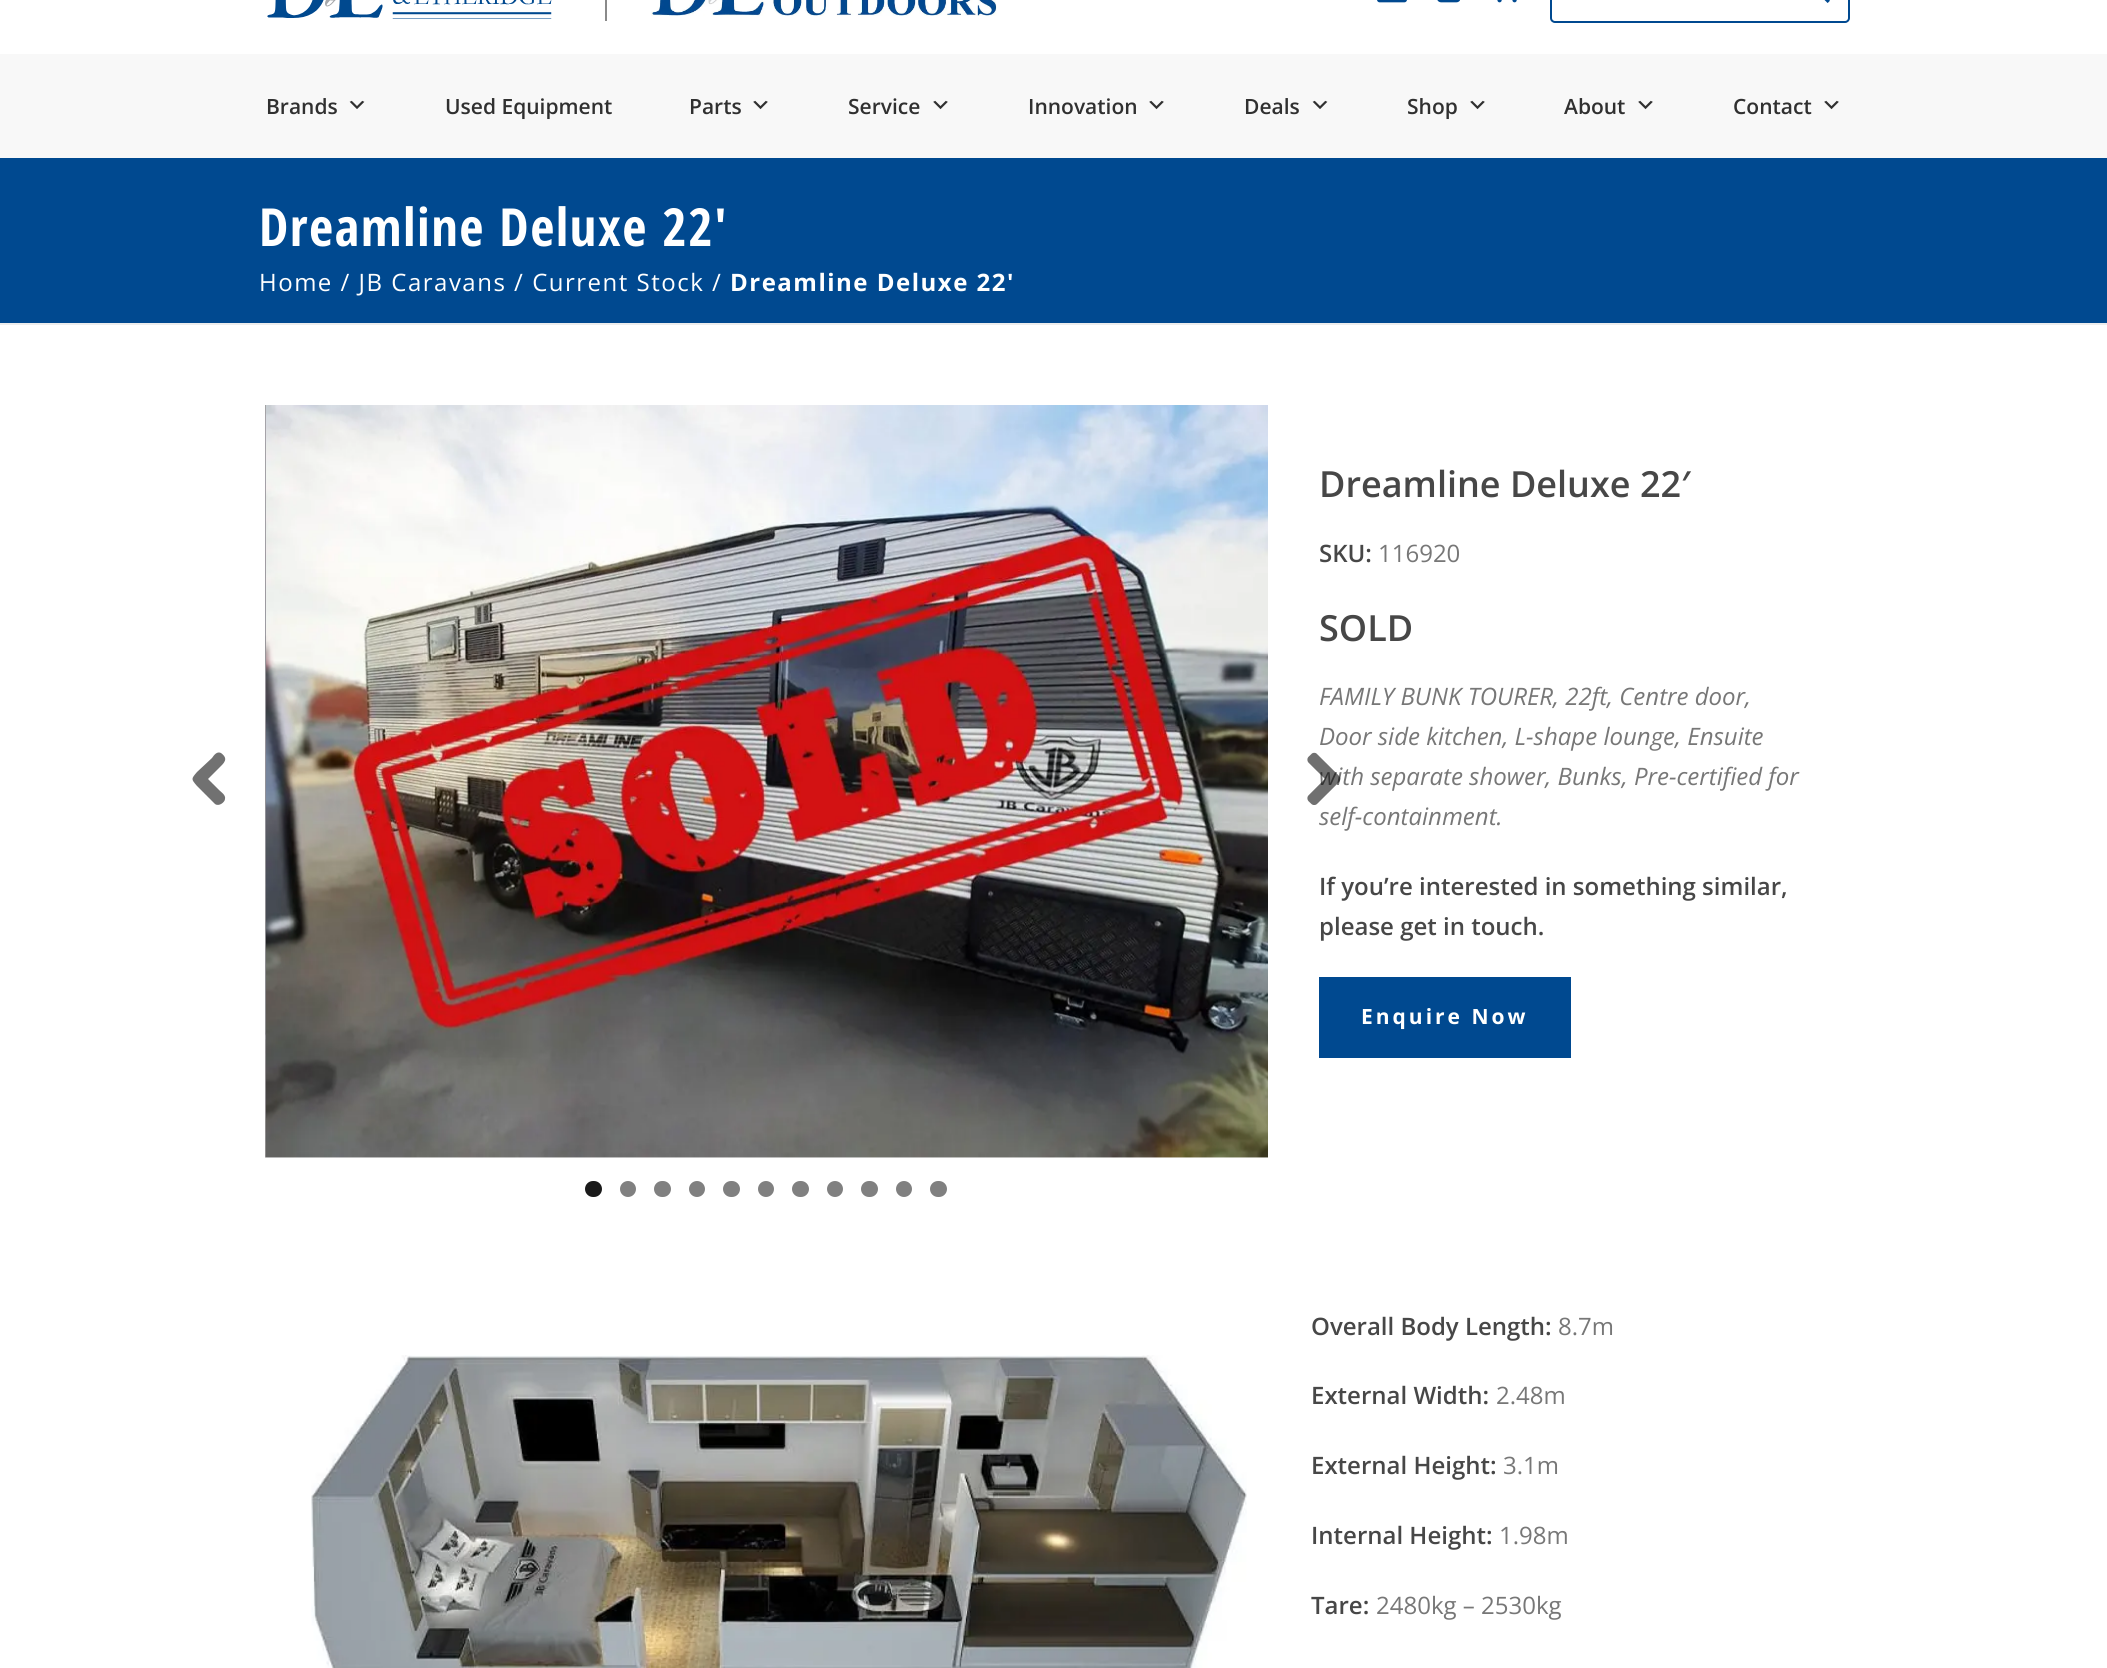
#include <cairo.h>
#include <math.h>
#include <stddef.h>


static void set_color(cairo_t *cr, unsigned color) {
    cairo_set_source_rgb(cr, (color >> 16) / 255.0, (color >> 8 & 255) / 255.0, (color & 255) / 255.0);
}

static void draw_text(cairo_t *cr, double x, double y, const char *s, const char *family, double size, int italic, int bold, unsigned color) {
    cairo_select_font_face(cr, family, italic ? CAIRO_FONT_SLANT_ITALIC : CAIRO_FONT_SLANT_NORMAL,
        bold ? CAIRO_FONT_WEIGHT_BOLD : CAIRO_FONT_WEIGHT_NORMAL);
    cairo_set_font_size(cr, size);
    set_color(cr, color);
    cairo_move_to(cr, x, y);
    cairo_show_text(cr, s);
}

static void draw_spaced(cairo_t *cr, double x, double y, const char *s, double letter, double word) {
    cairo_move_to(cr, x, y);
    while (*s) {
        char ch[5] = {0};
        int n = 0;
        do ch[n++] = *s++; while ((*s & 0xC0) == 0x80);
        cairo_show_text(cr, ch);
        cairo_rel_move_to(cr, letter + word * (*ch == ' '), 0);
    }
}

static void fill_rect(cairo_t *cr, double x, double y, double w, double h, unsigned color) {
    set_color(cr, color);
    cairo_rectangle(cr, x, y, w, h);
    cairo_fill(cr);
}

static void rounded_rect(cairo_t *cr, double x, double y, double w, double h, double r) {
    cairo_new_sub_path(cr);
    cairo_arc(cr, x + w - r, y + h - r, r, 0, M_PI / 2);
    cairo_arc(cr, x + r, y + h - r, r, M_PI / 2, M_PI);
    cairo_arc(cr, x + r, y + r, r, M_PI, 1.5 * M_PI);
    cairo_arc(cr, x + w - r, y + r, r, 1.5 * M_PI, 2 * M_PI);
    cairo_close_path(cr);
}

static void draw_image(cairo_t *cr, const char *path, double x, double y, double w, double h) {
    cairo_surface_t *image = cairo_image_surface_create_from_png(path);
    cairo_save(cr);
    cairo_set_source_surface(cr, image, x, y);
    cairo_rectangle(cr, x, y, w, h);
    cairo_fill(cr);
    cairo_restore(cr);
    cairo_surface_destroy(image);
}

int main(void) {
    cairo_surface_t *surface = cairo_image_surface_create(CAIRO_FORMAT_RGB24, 2107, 1668);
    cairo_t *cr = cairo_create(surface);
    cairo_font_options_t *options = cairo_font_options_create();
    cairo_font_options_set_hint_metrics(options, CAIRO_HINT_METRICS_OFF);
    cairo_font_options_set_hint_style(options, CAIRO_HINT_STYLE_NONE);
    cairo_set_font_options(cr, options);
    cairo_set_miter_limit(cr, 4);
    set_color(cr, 0xFFFFFF);
    cairo_paint(cr);
    fill_rect(cr, 0, 158, 2107, 165, 0x004990);
    fill_rect(cr, 0, 323, 2107, 2, 0xEDEDED);
    draw_image(cr, "assets/img1.png", 267, 0, 285, 19);
    fill_rect(cr, 605, 0, 2, 21, 0x8A8A8A);
    draw_image(cr, "assets/img2.png", 651, 0, 346, 16);
    draw_image(cr, "assets/img3.png", 1377, 0, 30, 3);
    draw_image(cr, "assets/img4.png", 1437, 0, 23, 3);
    draw_image(cr, "assets/img5.png", 1497, 0, 20, 3);
    rounded_rect(cr, 1551, -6, 298, 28, 4);
    set_color(cr, 0x004990);
    cairo_stroke(cr);
    draw_image(cr, "assets/img6.png", 1824, 0, 6, 3);
    fill_rect(cr, 0, 54, 2107, 104, 0xF8F8F8);
    draw_text(cr, 266, 114, "Brands", "Open Sans SemiBold", 21, 0, 0, 0x303030);
    draw_image(cr, "assets/img7.png", 349, 100, 16, 9);
    draw_text(cr, 445, 114, "Used Equipment", "Open Sans SemiBold", 21, 0, 0, 0x303030);
    draw_text(cr, 689, 114, "Parts", "Open Sans SemiBold", 21, 0, 0, 0x303030);
    draw_image(cr, "assets/img8.png", 753, 100, 15, 10);
    draw_text(cr, 848, 114, "Service", "Open Sans SemiBold", 21, 0, 0, 0x303030);
    draw_image(cr, "assets/img8.png", 933, 100, 15, 10);
    draw_text(cr, 1028, 114, "Innovation", "Open Sans SemiBold", 21, 0, 0, 0x303030);
    draw_image(cr, "assets/img8.png", 1149, 100, 15, 10);
    draw_text(cr, 1244, 114, "Deals", "Open Sans SemiBold", 21, 0, 0, 0x303030);
    draw_image(cr, "assets/img7.png", 1312, 100, 16, 9);
    draw_text(cr, 1407, 114, "Shop", "Open Sans SemiBold", 21, 0, 0, 0x303030);
    draw_image(cr, "assets/img8.png", 1470, 100, 15, 10);
    draw_text(cr, 1564, 114, "About", "Open Sans SemiBold", 21, 0, 0, 0x303030);
    draw_image(cr, "assets/img8.png", 1638, 100, 15, 10);
    draw_text(cr, 1733, 114, "Contact", "Open Sans SemiBold", 21, 0, 0, 0x303030);
    draw_image(cr, "assets/img8.png", 1824, 100, 15, 10);
    cairo_select_font_face(cr, "Open Sans Condensed", CAIRO_FONT_SLANT_NORMAL, CAIRO_FONT_WEIGHT_BOLD);
    cairo_set_font_size(cr, 52.5);
    set_color(cr, 0xFFFFFF);
    draw_spaced(cr, 259, 246, "Dreamline Deluxe 22′", 1.5, 0);
    cairo_select_font_face(cr, "Open Sans", CAIRO_FONT_SLANT_NORMAL, CAIRO_FONT_WEIGHT_NORMAL);
    cairo_set_font_size(cr, 24);
    draw_spaced(cr, 259, 291, "Home / JB Caravans / Current Stock /", 1.5, 0);
    cairo_select_font_face(cr, "Open Sans", CAIRO_FONT_SLANT_NORMAL, CAIRO_FONT_WEIGHT_BOLD);
    draw_spaced(cr, 730, 291, "Dreamline Deluxe 22'", 1.5, 0);
    draw_image(cr, "assets/img9.png", 265, 405, 1, 753);
    draw_image(cr, "assets/img10.png", 266, 405, 1002, 753);
    set_color(cr, 0x717171);
    cairo_new_path(cr);
    cairo_move_to(cr, 215, 804);
    cairo_line_to(cr, 197, 786);
    cairo_curve_to(cr, 191, 779, 191, 779, 197, 772);
    cairo_line_to(cr, 212, 758);
    cairo_curve_to(cr, 214, 755, 217, 751, 221, 753);
    cairo_curve_to(cr, 229, 759, 224, 763, 219, 768);
    cairo_line_to(cr, 208, 779);
    cairo_line_to(cr, 219, 790);
    cairo_curve_to(cr, 221, 792, 226, 795, 225, 799);
    cairo_curve_to(cr, 225, 802, 219, 807, 215, 804);
    cairo_close_path(cr);
    cairo_fill(cr);
    draw_text(cr, 1319, 785, "with separate shower, Bunks, Pre-certified for", "Open Sans", 24, 1, 0, 0x777777);
    draw_image(cr, "assets/img11.png", 1307, 752, 34, 53);
    set_color(cr, 0x1A1A1A);
    rounded_rect(cr, 585, 1181, 17, 16, 8);
    cairo_fill(cr);
    set_color(cr, 0x808080);
    cairo_arc(cr, 628, 1189, 8, 0, 2 * M_PI);
    cairo_fill(cr);
    rounded_rect(cr, 654, 1181, 17, 16, 8);
    cairo_fill(cr);
    cairo_arc(cr, 697, 1189, 8, 0, 2 * M_PI);
    cairo_fill(cr);
    rounded_rect(cr, 723, 1181, 17, 16, 8);
    cairo_fill(cr);
    cairo_arc(cr, 766, 1189, 8, 0, 2 * M_PI);
    cairo_fill(cr);
    rounded_rect(cr, 792, 1181, 17, 16, 8);
    cairo_fill(cr);
    cairo_arc(cr, 835, 1189, 8, 0, 2 * M_PI);
    cairo_fill(cr);
    rounded_rect(cr, 861, 1181, 17, 16, 8);
    cairo_fill(cr);
    cairo_arc(cr, 904, 1189, 8, 0, 2 * M_PI);
    cairo_fill(cr);
    rounded_rect(cr, 930, 1181, 17, 16, 8);
    cairo_fill(cr);
    draw_text(cr, 1319, 497, "Dreamline Deluxe 22′", "Open Sans SemiBold", 36, 0, 0, 0x474747);
    draw_text(cr, 1319, 562, "SKU:", "Open Sans SemiBold", 24, 0, 0, 0x474747);
    draw_text(cr, 1378, 562, "116920", "Open Sans", 24, 0, 0, 0x777777);
    draw_text(cr, 1319, 641, "SOLD", "Open Sans SemiBold", 36, 0, 0, 0x474747);
    draw_text(cr, 1319, 705, "FAMILY BUNK TOURER, 22ft, Centre door,", "Open Sans", 24, 1, 0, 0x777777);
    draw_text(cr, 1319, 745, "Door side kitchen, L-shape lounge, Ensuite", "Open Sans", 24, 1, 0, 0x777777);
    draw_text(cr, 1319, 825, "self-containment.", "Open Sans", 24, 1, 0, 0x777777);
    draw_text(cr, 1319, 895, "If you’re interested in something similar,", "Open Sans SemiBold", 24, 0, 0, 0x474747);
    draw_text(cr, 1319, 935, "please get in touch.", "Open Sans SemiBold", 24, 0, 0, 0x474747);
    fill_rect(cr, 1319, 977, 252, 81, 0x004990);
    cairo_select_font_face(cr, "Open Sans", CAIRO_FONT_SLANT_NORMAL, CAIRO_FONT_WEIGHT_BOLD);
    cairo_set_font_size(cr, 21);
    set_color(cr, 0xFFFFFF);
    draw_spaced(cr, 1361, 1024, "Enquire Now", 3, 0);
    draw_image(cr, "assets/img12.png", 311, 1355, 936, 313);
    draw_text(cr, 1311, 1335, "Overall Body Length:", "Open Sans SemiBold", 24, 0, 0, 0x474747);
    draw_text(cr, 1558, 1335, "8.7m", "Open Sans", 24, 0, 0, 0x777777);
    draw_text(cr, 1311, 1404, "External Width:", "Open Sans SemiBold", 24, 0, 0, 0x474747);
    draw_text(cr, 1496, 1404, "2.48m", "Open Sans", 24, 0, 0, 0x777777);
    draw_text(cr, 1311, 1474, "External Height:", "Open Sans SemiBold", 24, 0, 0, 0x474747);
    draw_text(cr, 1503, 1474, "3.1m", "Open Sans", 24, 0, 0, 0x777777);
    draw_text(cr, 1311, 1544, "Internal Height:", "Open Sans SemiBold", 24, 0, 0, 0x474747);
    draw_text(cr, 1499, 1544, "1.98m", "Open Sans", 24, 0, 0, 0x777777);
    draw_text(cr, 1311, 1614, "Tare:", "Open Sans SemiBold", 24, 0, 0, 0x474747);
    draw_text(cr, 1376, 1614, "2480kg – 2530kg", "Open Sans", 24, 0, 0, 0x777777);
    cairo_surface_write_to_png(surface, "output.png");
    cairo_font_options_destroy(options);
    cairo_destroy(cr);
    cairo_surface_destroy(surface);
    return 0;
}
